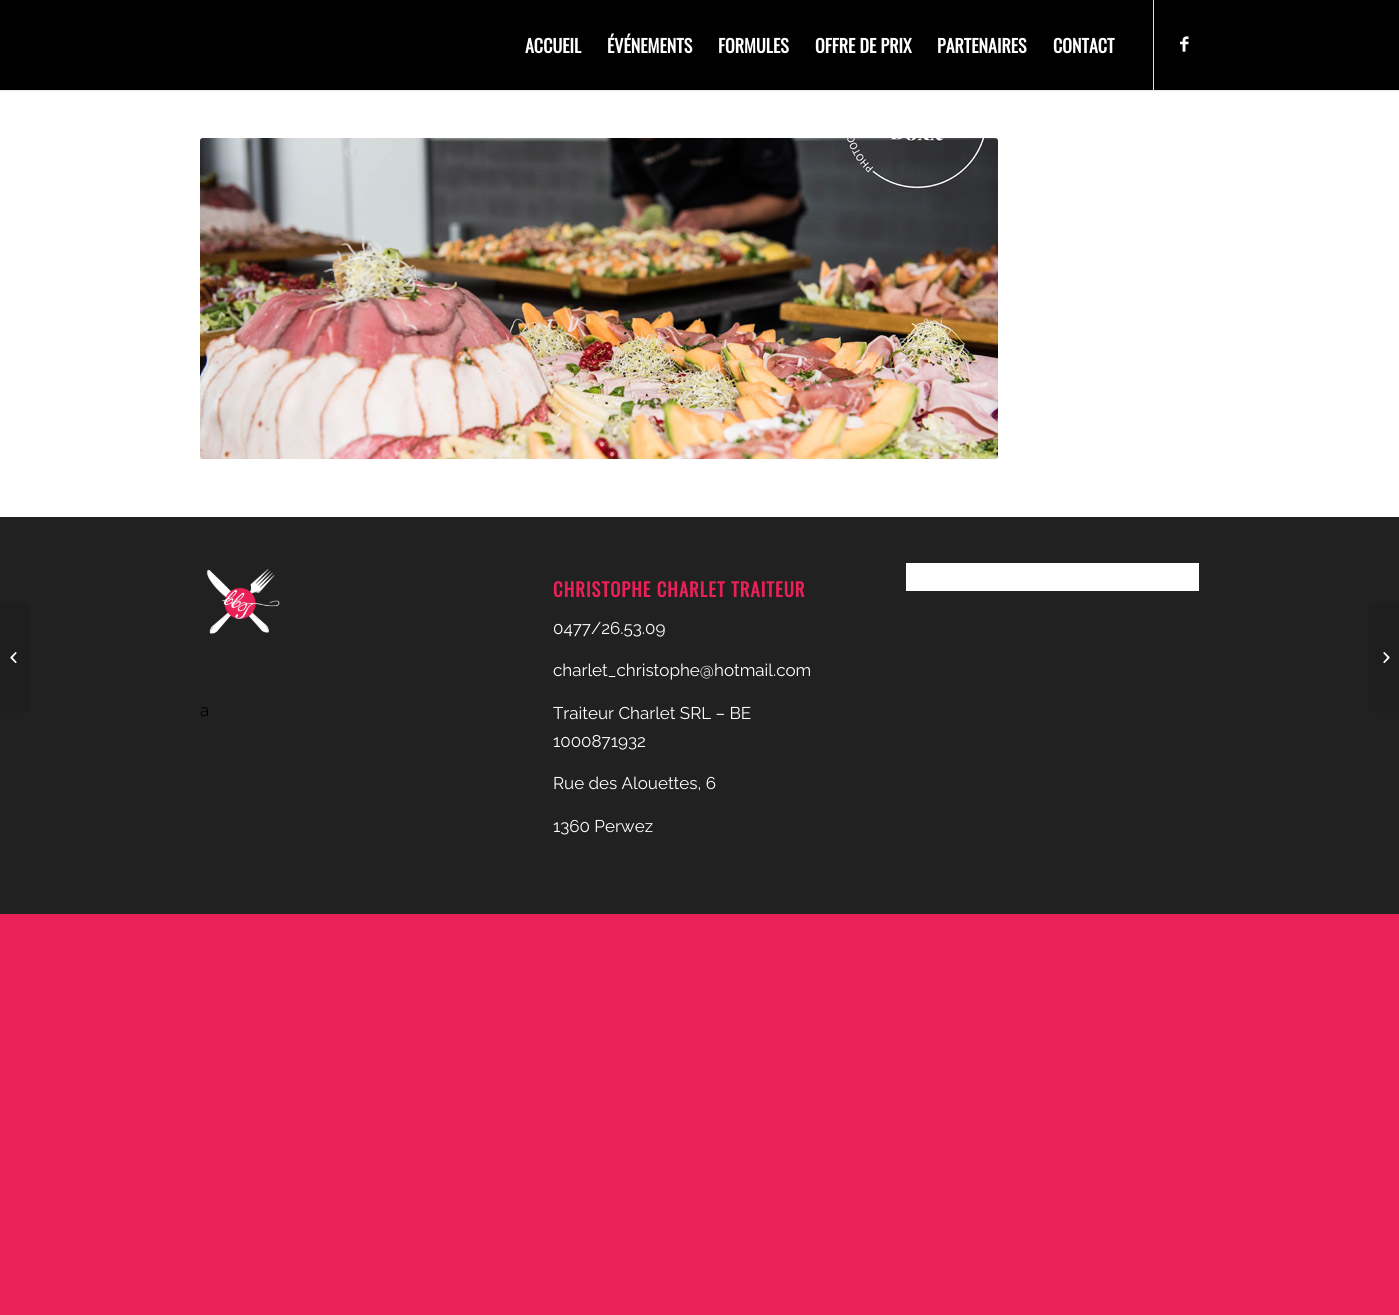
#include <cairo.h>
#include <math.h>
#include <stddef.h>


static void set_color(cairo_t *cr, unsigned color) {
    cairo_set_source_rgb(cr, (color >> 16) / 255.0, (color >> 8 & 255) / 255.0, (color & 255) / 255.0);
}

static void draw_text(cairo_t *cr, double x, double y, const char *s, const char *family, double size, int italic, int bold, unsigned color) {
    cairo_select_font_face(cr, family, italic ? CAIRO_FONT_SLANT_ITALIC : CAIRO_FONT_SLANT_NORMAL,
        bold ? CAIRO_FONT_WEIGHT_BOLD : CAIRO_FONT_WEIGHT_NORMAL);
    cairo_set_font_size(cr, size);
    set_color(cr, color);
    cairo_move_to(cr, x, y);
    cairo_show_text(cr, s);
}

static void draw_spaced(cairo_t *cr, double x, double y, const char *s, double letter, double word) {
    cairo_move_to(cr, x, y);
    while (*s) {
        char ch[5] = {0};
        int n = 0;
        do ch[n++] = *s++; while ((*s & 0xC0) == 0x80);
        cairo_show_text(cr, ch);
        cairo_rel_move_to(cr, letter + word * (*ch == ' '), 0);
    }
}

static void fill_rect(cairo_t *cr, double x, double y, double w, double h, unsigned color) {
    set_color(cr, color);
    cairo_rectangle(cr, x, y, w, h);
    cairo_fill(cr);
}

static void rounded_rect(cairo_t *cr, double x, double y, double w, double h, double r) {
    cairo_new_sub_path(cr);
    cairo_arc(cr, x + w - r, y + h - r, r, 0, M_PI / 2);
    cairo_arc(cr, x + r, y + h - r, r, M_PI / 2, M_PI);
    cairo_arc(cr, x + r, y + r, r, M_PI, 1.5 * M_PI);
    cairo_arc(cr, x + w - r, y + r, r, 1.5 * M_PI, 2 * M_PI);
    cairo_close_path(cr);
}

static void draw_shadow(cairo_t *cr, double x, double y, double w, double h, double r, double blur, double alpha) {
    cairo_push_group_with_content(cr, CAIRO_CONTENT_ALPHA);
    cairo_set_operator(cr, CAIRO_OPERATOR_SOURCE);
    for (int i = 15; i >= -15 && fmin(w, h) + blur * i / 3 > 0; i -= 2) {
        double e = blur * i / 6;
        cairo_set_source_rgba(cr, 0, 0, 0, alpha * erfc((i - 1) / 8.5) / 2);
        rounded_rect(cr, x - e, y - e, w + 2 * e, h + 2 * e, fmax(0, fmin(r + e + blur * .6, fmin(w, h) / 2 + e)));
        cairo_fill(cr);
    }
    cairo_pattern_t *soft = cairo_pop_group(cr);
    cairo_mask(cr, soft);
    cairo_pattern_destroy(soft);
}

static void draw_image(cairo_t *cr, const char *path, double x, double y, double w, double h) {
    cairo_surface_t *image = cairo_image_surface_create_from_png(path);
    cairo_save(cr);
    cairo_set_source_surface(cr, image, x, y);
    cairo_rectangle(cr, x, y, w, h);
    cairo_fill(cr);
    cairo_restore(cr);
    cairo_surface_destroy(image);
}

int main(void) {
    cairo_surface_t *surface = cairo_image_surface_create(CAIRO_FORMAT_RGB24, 1399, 1315);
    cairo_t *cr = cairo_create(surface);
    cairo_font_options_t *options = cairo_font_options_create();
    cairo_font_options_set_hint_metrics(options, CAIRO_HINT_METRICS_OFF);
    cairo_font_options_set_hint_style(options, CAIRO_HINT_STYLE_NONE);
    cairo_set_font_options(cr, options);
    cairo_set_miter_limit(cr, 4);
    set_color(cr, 0xEA2157);
    cairo_paint(cr);
    fill_rect(cr, 0, 90, 1399, 427, 0xFFFFFF);
    set_color(cr, 0x000000);
    draw_shadow(cr, -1, -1, 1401, 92, 0, 1, 0.1);
    fill_rect(cr, 0, 0, 1399, 90, 0x000000);
    fill_rect(cr, 1153, 0, 1, 90, 0xE1E1E1);
    draw_text(cr, 525, 53, "ACCUEIL", "Oswald", 18, 0, 1, 0xFFFFFF);
    draw_text(cr, 607, 53, "ÉVÉNEMENTS", "Oswald", 18, 0, 1, 0xFFFFFF);
    draw_text(cr, 718, 53, "FORMULES", "Oswald", 18, 0, 1, 0xFFFFFF);
    draw_text(cr, 815, 53, "OFFRE DE PRIX", "Oswald", 18, 0, 1, 0xFFFFFF);
    draw_text(cr, 937, 53, "PARTENAIRES", "Oswald", 18, 0, 1, 0xFFFFFF);
    draw_text(cr, 1053, 53, "CONTACT", "Oswald", 18, 0, 1, 0xFFFFFF);
    draw_image(cr, "assets/img1.png", 1180, 36, 9, 16);
    fill_rect(cr, 0, 517, 1399, 397, 0x212121);
    set_color(cr, 0x1E1E1E);
    cairo_new_path(cr);
    cairo_move_to(cr, 0, 603);
    cairo_line_to(cr, 27, 603);
    cairo_curve_to(cr, 29, 603, 31, 605, 31, 607);
    cairo_line_to(cr, 31, 709);
    cairo_curve_to(cr, 31, 711, 29, 713, 27, 713);
    cairo_line_to(cr, 0, 713);
    cairo_close_path(cr);
    cairo_fill(cr);
    draw_image(cr, "assets/img2.png", 10, 652, 7, 12);
    draw_image(cr, "assets/img3.png", 200, 138, 798, 321);
    fill_rect(cr, 906, 563, 293, 28, 0xFFFFFF);
    draw_image(cr, "assets/img4.png", 206, 569, 74, 65);
    draw_text(cr, 200, 716, "a", "Raleway Thin", 17, 0, 0, 0x000000);
    cairo_select_font_face(cr, "Oswald", CAIRO_FONT_SLANT_NORMAL, CAIRO_FONT_WEIGHT_BOLD);
    cairo_set_font_size(cr, 18.75);
    set_color(cr, 0xEA2157);
    draw_spaced(cr, 553, 597, "CHRISTOPHE CHARLET TRAITEUR", 1, 0);
    draw_text(cr, 553, 634, "0477/26.53.09", "Raleway Thin", 17, 0, 0, 0xFFFFFF);
    draw_text(cr, 553, 676, "charlet_christophe@hotmail.com", "Raleway Thin", 17, 0, 0, 0xFFFFFF);
    draw_text(cr, 553, 719, "Traiteur Charlet SRL – BE", "Raleway Thin", 17, 0, 0, 0xFFFFFF);
    draw_text(cr, 553, 747, "1000871932", "Raleway Thin", 17, 0, 0, 0xFFFFFF);
    draw_text(cr, 553, 789, "Rue des Alouettes, 6", "Raleway Thin", 17, 0, 0, 0xFFFFFF);
    draw_text(cr, 553, 832, "1360 Perwez", "Raleway Thin", 17, 0, 0, 0xFFFFFF);
    set_color(cr, 0x1E1E1E);
    cairo_new_path(cr);
    cairo_move_to(cr, 1372, 603);
    cairo_line_to(cr, 1399, 603);
    cairo_line_to(cr, 1399, 713);
    cairo_line_to(cr, 1372, 713);
    cairo_curve_to(cr, 1370, 713, 1368, 711, 1368, 709);
    cairo_line_to(cr, 1368, 607);
    cairo_curve_to(cr, 1368, 605, 1370, 603, 1372, 603);
    cairo_close_path(cr);
    cairo_fill(cr);
    draw_image(cr, "assets/img5.png", 1383, 652, 7, 12);
    cairo_surface_write_to_png(surface, "output.png");
    cairo_font_options_destroy(options);
    cairo_destroy(cr);
    cairo_surface_destroy(surface);
    return 0;
}
